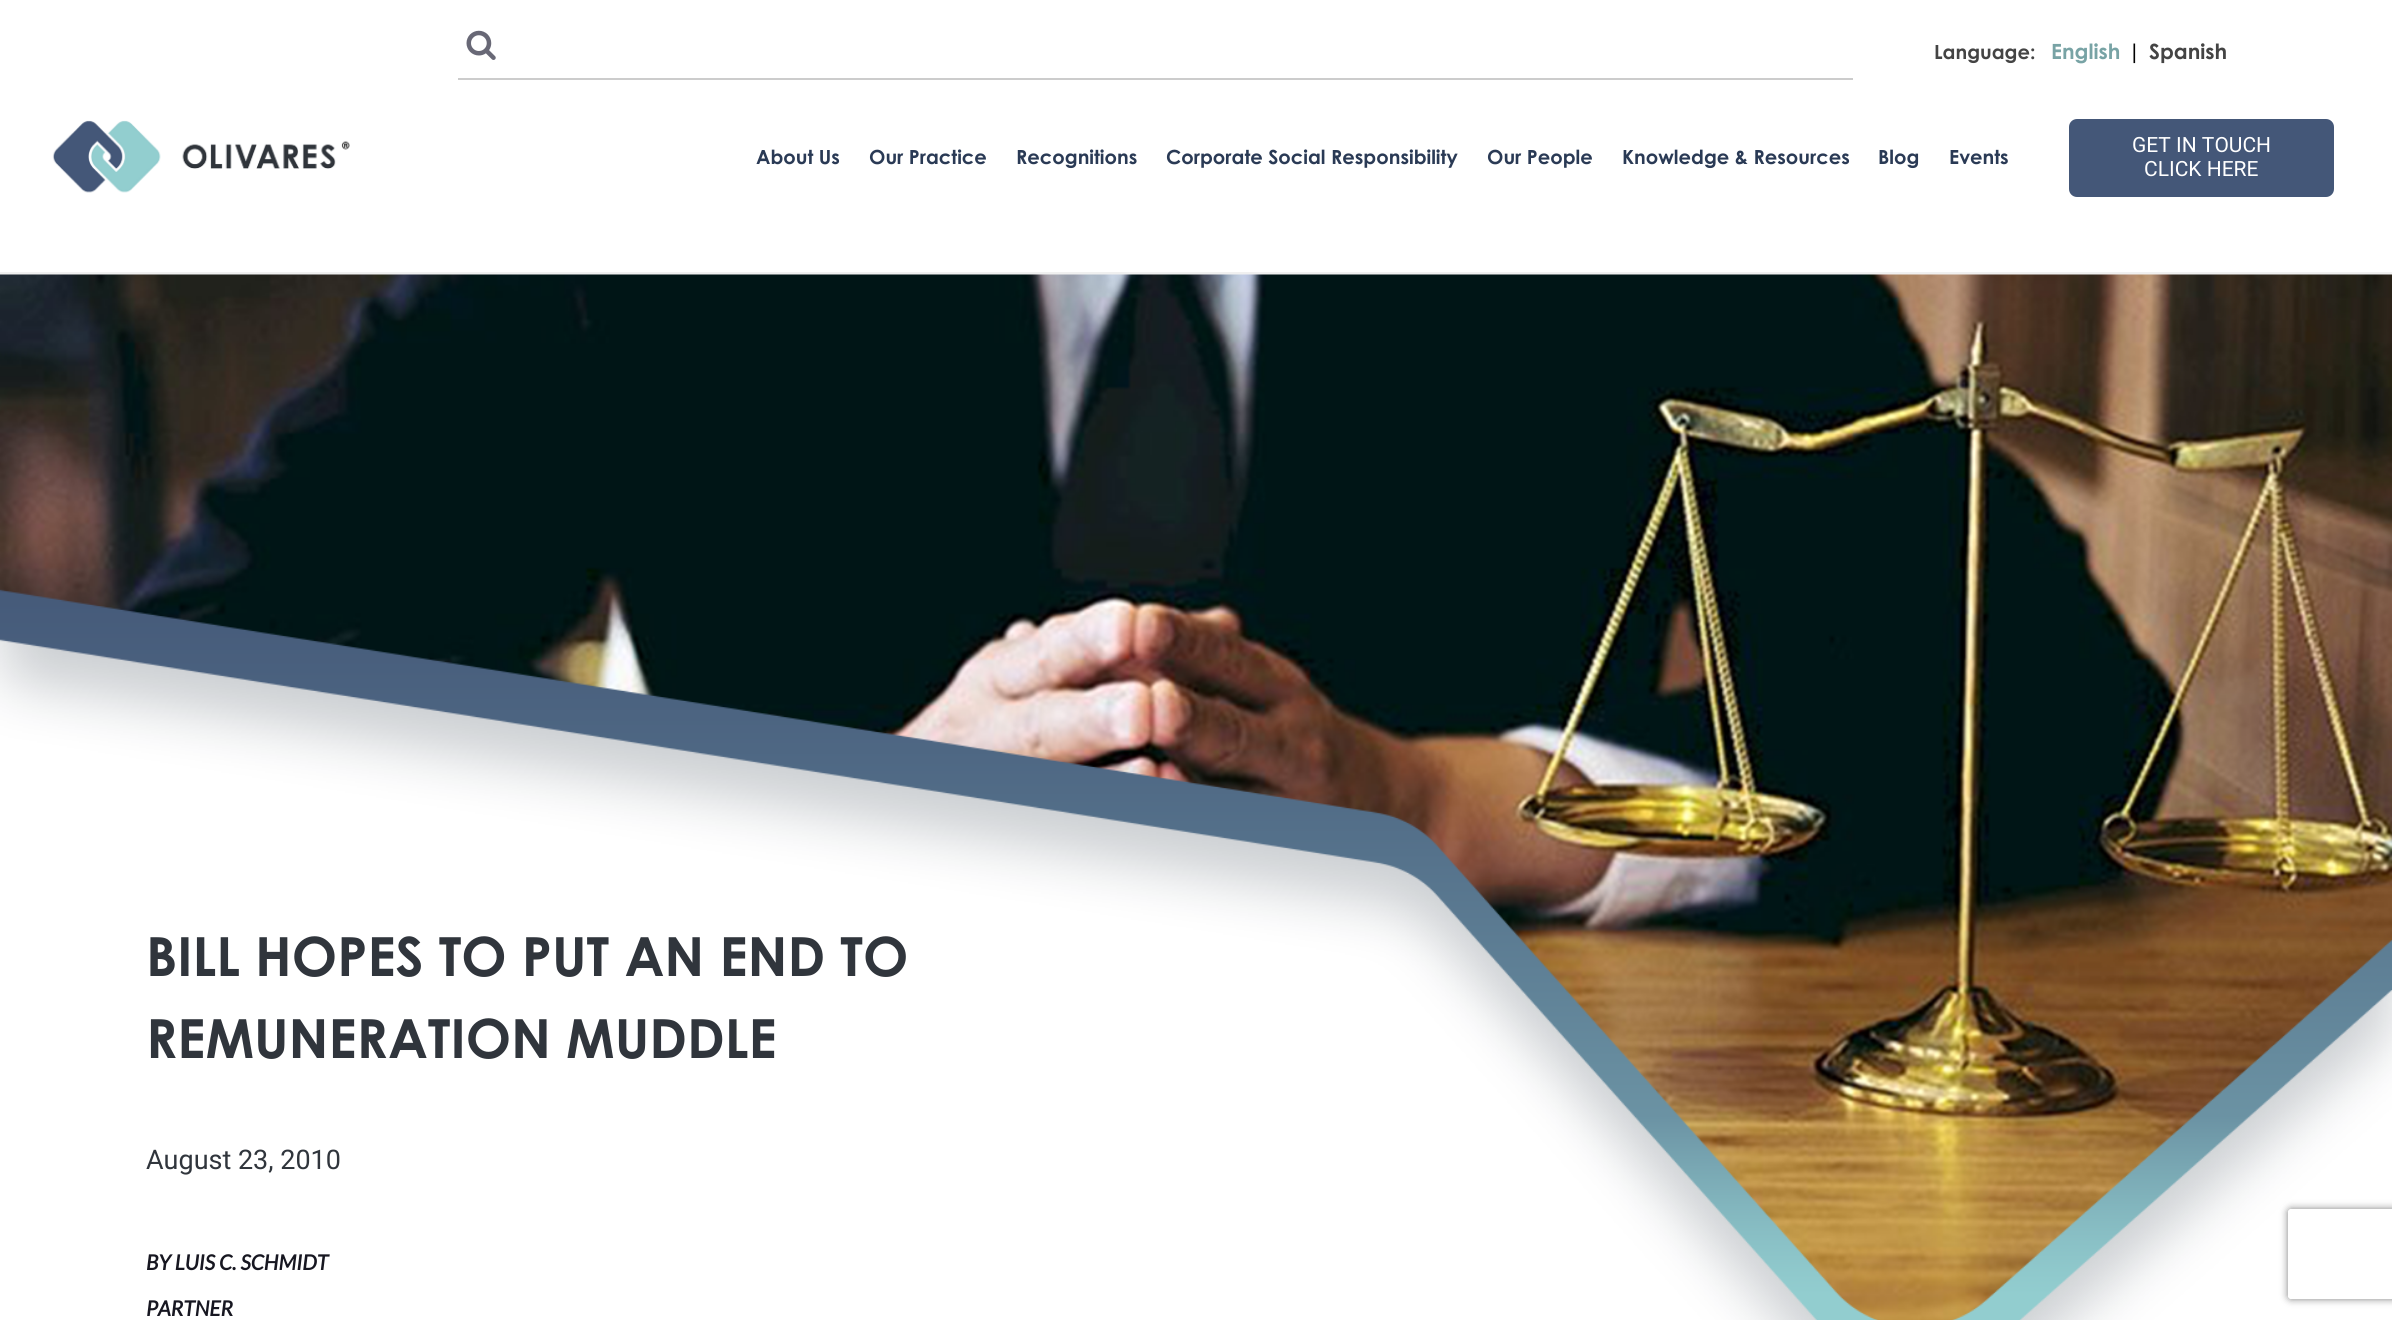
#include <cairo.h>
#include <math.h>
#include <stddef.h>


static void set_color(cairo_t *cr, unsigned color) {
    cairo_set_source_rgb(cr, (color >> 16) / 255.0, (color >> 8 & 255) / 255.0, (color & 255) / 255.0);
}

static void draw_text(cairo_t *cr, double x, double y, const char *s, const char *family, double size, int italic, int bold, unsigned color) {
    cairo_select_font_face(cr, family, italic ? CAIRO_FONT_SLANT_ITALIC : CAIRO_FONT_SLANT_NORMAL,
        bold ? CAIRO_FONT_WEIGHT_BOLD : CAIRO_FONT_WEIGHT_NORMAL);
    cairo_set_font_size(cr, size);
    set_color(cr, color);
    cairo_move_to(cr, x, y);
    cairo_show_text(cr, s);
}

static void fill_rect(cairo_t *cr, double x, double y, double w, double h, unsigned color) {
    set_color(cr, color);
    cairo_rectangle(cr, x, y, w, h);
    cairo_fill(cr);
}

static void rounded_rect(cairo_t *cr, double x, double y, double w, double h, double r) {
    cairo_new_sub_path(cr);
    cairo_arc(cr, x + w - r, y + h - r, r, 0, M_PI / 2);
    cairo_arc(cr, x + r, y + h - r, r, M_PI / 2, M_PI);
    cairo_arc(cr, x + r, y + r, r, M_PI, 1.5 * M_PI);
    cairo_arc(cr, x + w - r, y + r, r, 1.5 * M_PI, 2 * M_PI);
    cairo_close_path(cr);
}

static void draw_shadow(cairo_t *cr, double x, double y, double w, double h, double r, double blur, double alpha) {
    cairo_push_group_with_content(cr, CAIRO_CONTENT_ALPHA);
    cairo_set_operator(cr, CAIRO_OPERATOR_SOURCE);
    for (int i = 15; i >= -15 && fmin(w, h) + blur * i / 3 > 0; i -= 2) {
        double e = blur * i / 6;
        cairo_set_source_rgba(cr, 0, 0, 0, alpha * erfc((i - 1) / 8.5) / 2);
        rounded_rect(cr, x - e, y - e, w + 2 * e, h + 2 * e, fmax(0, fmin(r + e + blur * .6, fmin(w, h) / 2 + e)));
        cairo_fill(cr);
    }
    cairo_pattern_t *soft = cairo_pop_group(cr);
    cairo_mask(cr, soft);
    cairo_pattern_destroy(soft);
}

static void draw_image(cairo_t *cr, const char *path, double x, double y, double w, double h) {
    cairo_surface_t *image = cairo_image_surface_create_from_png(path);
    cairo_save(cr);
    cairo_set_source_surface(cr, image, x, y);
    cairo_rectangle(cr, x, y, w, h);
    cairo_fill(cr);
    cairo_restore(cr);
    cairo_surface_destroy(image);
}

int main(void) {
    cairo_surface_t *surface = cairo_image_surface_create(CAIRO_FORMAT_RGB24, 2392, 1320);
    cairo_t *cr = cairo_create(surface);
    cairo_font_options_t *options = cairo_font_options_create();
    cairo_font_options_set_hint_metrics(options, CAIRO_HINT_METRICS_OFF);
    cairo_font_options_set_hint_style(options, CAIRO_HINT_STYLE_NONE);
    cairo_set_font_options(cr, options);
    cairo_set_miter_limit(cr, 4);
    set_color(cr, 0xFFFFFF);
    cairo_paint(cr);
    fill_rect(cr, 0, 272, 2392, 3, 0xF0F0F0);
    draw_image(cr, "assets/img1.png", 466, 30, 30, 30);
    fill_rect(cr, 458, 78, 1395, 2, 0xCCCCCC);
    draw_text(cr, 1934, 59, "Language:", "Century Gothic", 19.5, 0, 1, 0x444444);
    draw_text(cr, 2051, 59, "English", "Century Gothic", 21, 0, 1, 0x78A3A5);
    draw_text(cr, 2128, 59, "|", "Century Gothic", 21, 0, 1, 0x000000);
    draw_text(cr, 2149, 59, "Spanish", "Century Gothic", 21, 0, 1, 0x444444);
    draw_image(cr, "assets/img2.png", 52, 120, 298, 73);
    draw_text(cr, 756, 164, "About Us", "Century Gothic", 19.5, 0, 1, 0x2A3A55);
    draw_text(cr, 869, 164, "Our Practice", "Century Gothic", 19.5, 0, 1, 0x2A3A55);
    draw_text(cr, 1016, 164, "Recognitions", "Century Gothic", 19.5, 0, 1, 0x2A3A55);
    draw_text(cr, 1166, 164, "Corporate Social Responsibility", "Century Gothic", 19.5, 0, 1, 0x2A3A55);
    draw_text(cr, 1487, 164, "Our People", "Century Gothic", 19.5, 0, 1, 0x2A3A55);
    draw_text(cr, 1622, 164, "Knowledge & Resources", "Century Gothic", 19.5, 0, 1, 0x2A3A55);
    draw_text(cr, 1878, 164, "Blog", "Century Gothic", 19.5, 0, 1, 0x2A3A55);
    draw_text(cr, 1949, 164, "Events", "Century Gothic", 19.5, 0, 1, 0x2A3A55);
    set_color(cr, 0x445778);
    rounded_rect(cr, 2069, 119, 265, 78, 8);
    cairo_fill(cr);
    draw_text(cr, 2132, 152, "GET IN TOUCH", "Roboto", 21, 0, 0, 0xFFFFFF);
    draw_text(cr, 2144, 176, "CLICK HERE", "Roboto", 21, 0, 0, 0xFFFFFF);
    draw_image(cr, "assets/img3.png", 0, 274, 2392, 1046);
    draw_text(cr, 146, 976, "BILL HOPES TO PUT AN END TO", "Century Gothic", 54, 0, 1, 0x30353C);
    draw_text(cr, 146, 1058, "REMUNERATION MUDDLE", "Century Gothic", 54, 0, 1, 0x30353C);
    draw_text(cr, 146, 1169, "August 23, 2010", "Roboto", 27, 0, 0, 0x30353C);
    draw_text(cr, 146, 1270, "BY LUIS C. SCHMIDT", "Lato", 21, 1, 1, 0x171721);
    draw_text(cr, 146, 1316, "PARTNER", "Lato", 21, 1, 1, 0x171721);
    cairo_save(cr);
    cairo_set_fill_rule(cr, CAIRO_FILL_RULE_EVEN_ODD);
    cairo_new_path(cr);
    cairo_move_to(cr, 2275, 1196);
    cairo_line_to(cr, 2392, 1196);
    cairo_line_to(cr, 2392, 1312);
    cairo_line_to(cr, 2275, 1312);
    cairo_close_path(cr);
    cairo_move_to(cr, 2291, 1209);
    cairo_line_to(cr, 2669, 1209);
    cairo_curve_to(cr, 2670.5, 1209, 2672, 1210.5, 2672, 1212);
    cairo_line_to(cr, 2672, 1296);
    cairo_curve_to(cr, 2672, 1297.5, 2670.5, 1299, 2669, 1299);
    cairo_line_to(cr, 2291, 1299);
    cairo_curve_to(cr, 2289.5, 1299, 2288, 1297.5, 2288, 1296);
    cairo_line_to(cr, 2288, 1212);
    cairo_curve_to(cr, 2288, 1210.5, 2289.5, 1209, 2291, 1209);
    cairo_close_path(cr);
    cairo_clip(cr);
    set_color(cr, 0x808080);
    draw_shadow(cr, 2288, 1209, 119, 90, 3, 4, 1);
    cairo_restore(cr);
    cairo_surface_write_to_png(surface, "output.png");
    cairo_font_options_destroy(options);
    cairo_destroy(cr);
    cairo_surface_destroy(surface);
    return 0;
}
